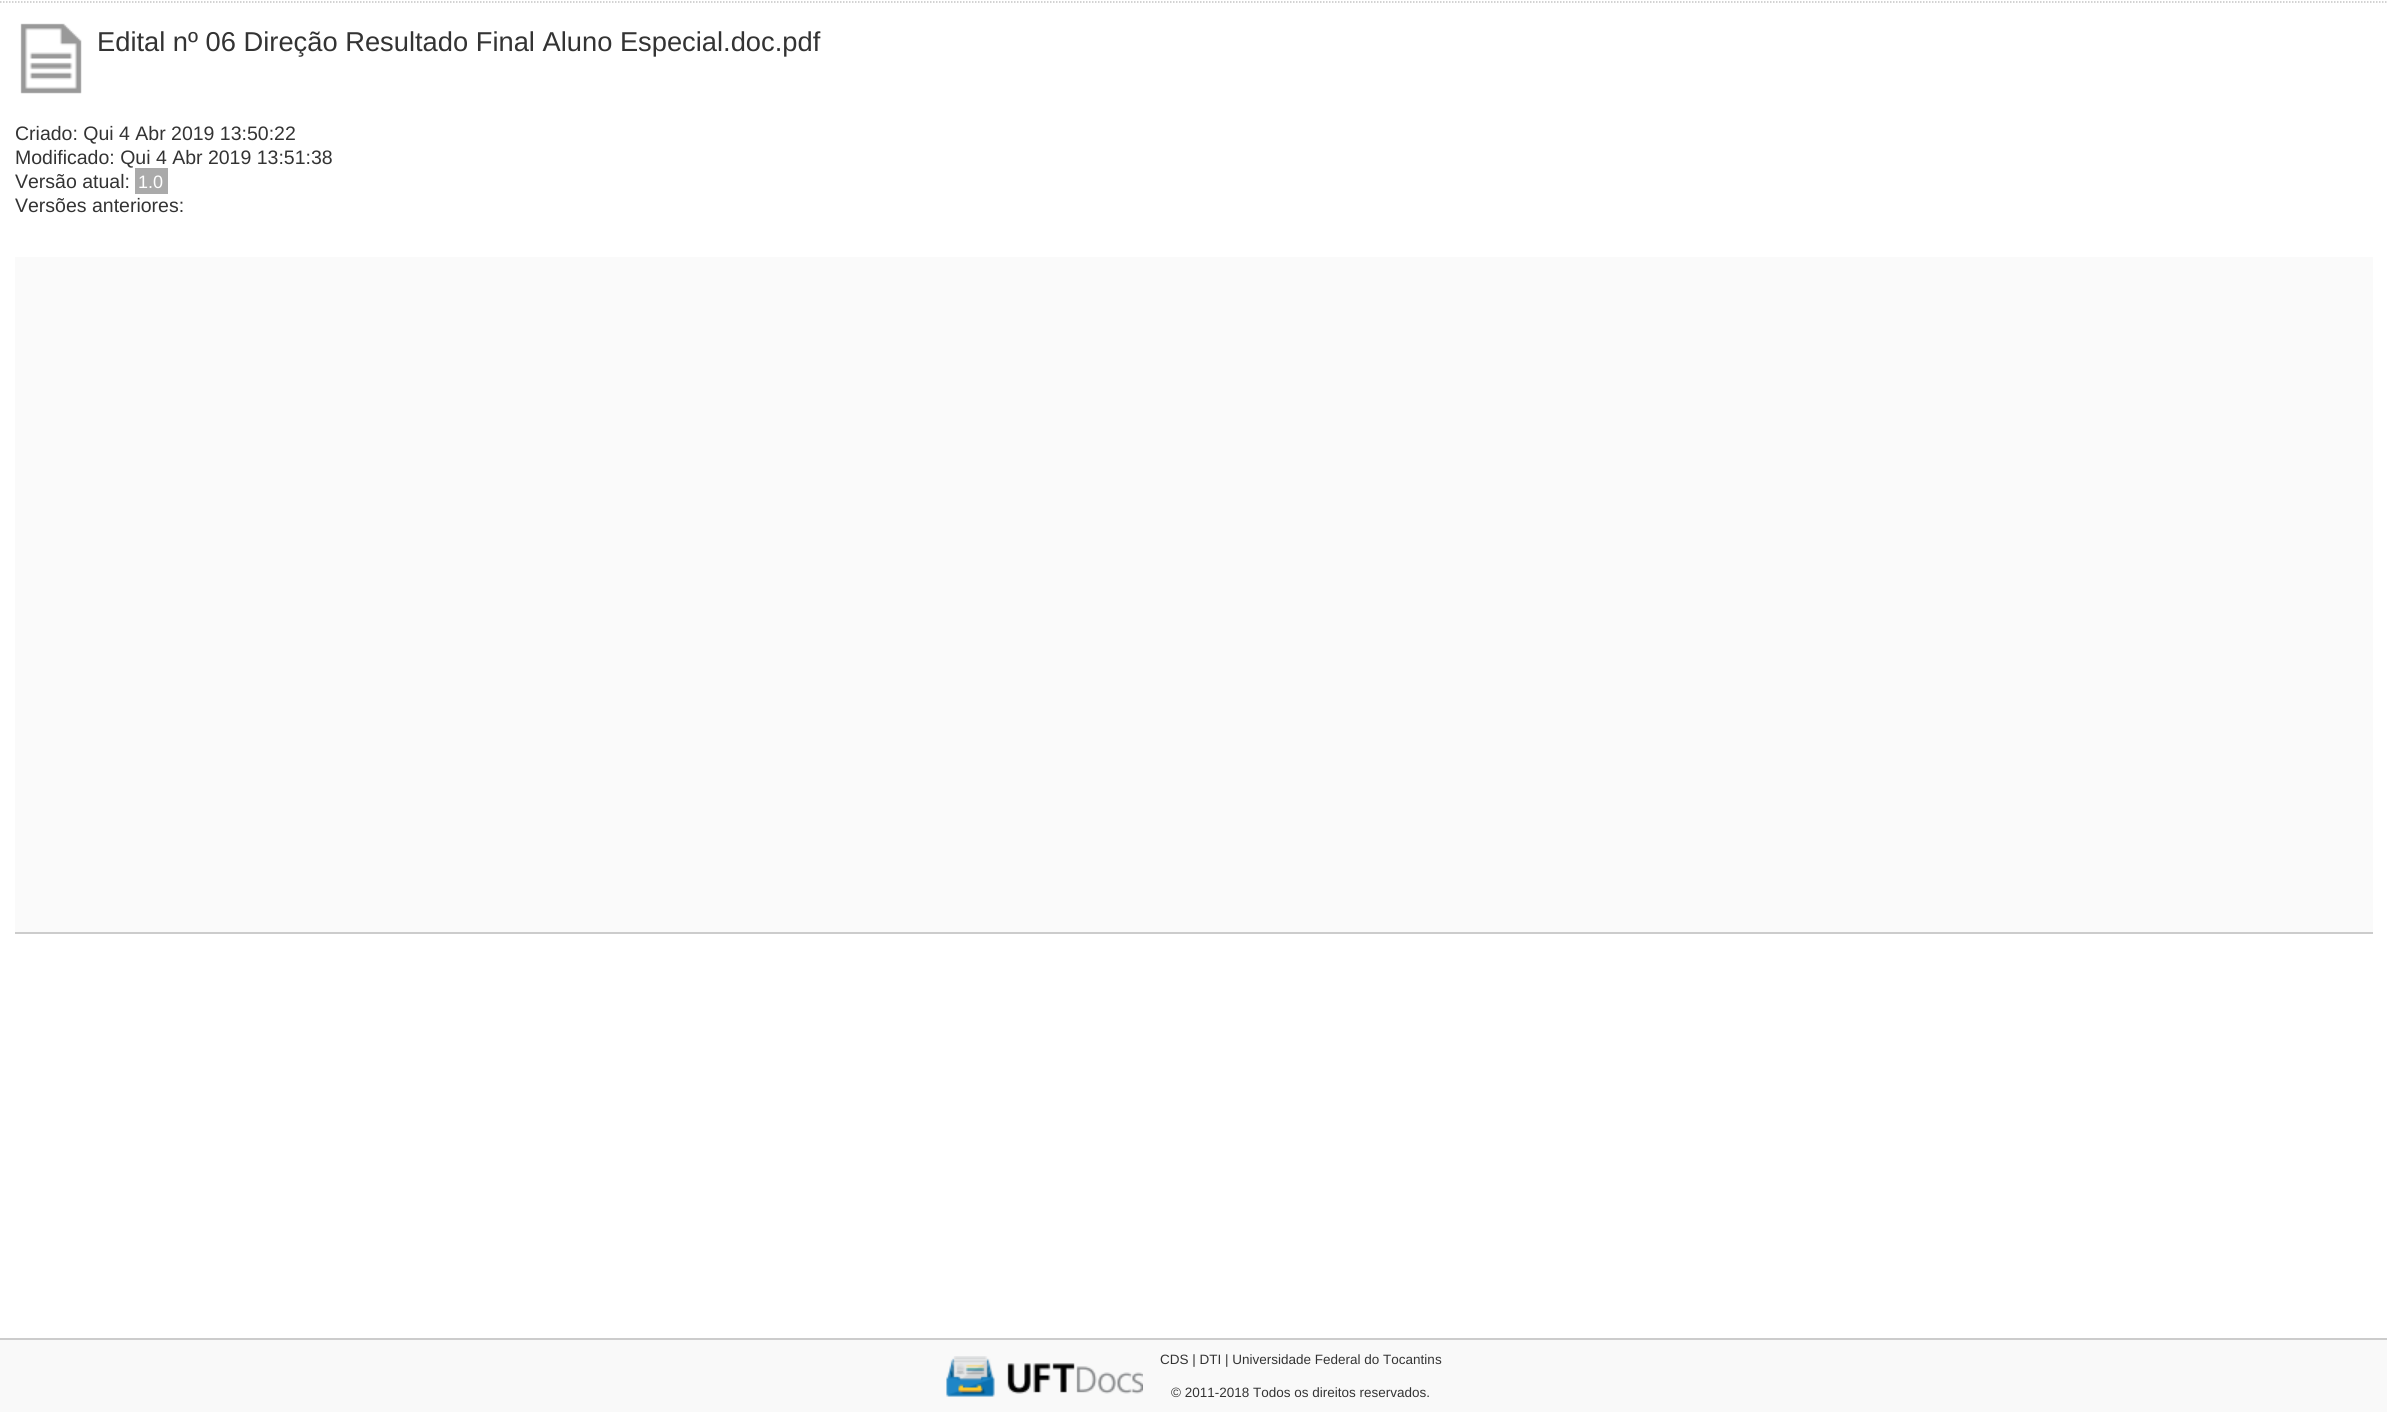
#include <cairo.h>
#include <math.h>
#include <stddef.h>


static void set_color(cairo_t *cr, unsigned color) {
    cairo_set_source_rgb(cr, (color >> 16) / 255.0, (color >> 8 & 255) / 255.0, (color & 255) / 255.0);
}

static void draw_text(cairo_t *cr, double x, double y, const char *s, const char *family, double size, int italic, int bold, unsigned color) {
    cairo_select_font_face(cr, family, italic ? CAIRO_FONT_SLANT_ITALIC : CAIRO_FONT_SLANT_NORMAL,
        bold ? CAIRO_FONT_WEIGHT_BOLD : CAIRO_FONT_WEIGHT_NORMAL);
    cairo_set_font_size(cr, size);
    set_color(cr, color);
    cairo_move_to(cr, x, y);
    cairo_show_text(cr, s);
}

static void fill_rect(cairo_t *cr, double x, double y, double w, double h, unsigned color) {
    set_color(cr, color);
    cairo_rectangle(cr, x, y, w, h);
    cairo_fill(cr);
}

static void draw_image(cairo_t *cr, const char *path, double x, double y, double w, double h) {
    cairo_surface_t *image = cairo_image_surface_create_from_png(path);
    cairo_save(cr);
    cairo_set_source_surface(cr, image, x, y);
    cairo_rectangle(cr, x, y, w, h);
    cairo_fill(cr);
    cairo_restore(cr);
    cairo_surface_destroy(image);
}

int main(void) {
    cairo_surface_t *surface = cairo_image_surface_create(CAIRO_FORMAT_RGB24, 2387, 1413);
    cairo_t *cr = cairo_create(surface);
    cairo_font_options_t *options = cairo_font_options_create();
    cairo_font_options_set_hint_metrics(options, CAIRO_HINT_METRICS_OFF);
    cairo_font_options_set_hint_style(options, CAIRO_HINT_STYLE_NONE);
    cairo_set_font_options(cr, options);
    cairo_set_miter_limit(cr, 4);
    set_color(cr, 0xFFFFFF);
    cairo_paint(cr);
    cairo_new_path(cr);
    cairo_move_to(cr, 0, 2);
    cairo_line_to(cr, 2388, 2);
    set_color(cr, 0xC4C5C5);
    cairo_set_line_width(cr, 1.5);
    cairo_set_dash(cr, (double[]){1.5, 1.5}, 2, 0);
    cairo_stroke(cr);
    draw_image(cr, "assets/img1.png", 20, 23, 62, 71);
    draw_text(cr, 97, 51, "Edital nº 06 Direção Resultado Final Aluno Especial.doc.pdf", "Liberation Sans", 27.3, 0, 0, 0x333333);
    draw_text(cr, 15, 140, "Criado: Qui 4 Abr 2019 13:50:22", "Liberation Sans", 19.5, 0, 0, 0x333333);
    draw_text(cr, 15, 164, "Modificado: Qui 4 Abr 2019 13:51:38", "Liberation Sans", 19.5, 0, 0, 0x333333);
    draw_text(cr, 15, 188, "Versão atual:", "Liberation Sans", 19.5, 0, 0, 0x333333);
    fill_rect(cr, 135, 168, 33, 26, 0xAAAAAA);
    draw_text(cr, 138, 188, "1.0", "Liberation Sans", 18, 0, 0, 0xFFFFFF);
    draw_text(cr, 15, 212, "Versões anteriores:", "Liberation Sans", 19.5, 0, 0, 0x333333);
    fill_rect(cr, 15, 257, 2358, 675, 0xFAFAFA);
    fill_rect(cr, 15, 932, 2358, 2, 0xCCCCCC);
    fill_rect(cr, 0, 1340, 2387, 72, 0xF9F9F9);
    fill_rect(cr, 0, 1338, 2387, 2, 0xCCCCCC);
    draw_image(cr, "assets/img2.png", 946, 1356, 197, 41);
    draw_text(cr, 1160, 1364, "CDS | DTI | Universidade Federal do Tocantins", "Liberation Sans", 13.5, 0, 0, 0x333333);
    draw_text(cr, 1171, 1397, "© 2011-2018 Todos os direitos reservados.", "Liberation Sans", 13.5, 0, 0, 0x333333);
    cairo_surface_write_to_png(surface, "output.png");
    cairo_font_options_destroy(options);
    cairo_destroy(cr);
    cairo_surface_destroy(surface);
    return 0;
}
